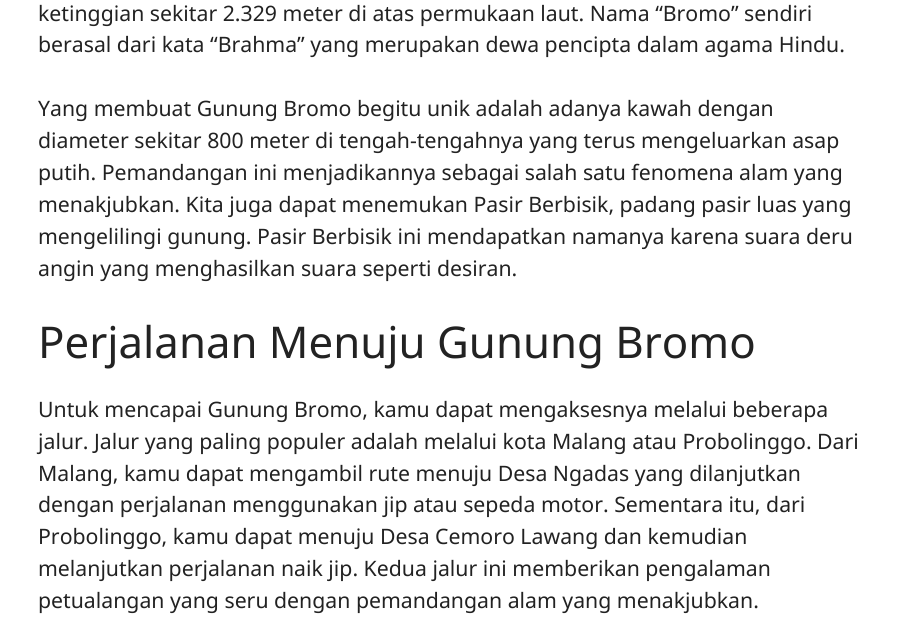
#include <cairo.h>
#include <math.h>
#include <stddef.h>


static void set_color(cairo_t *cr, unsigned color) {
    cairo_set_source_rgb(cr, (color >> 16) / 255.0, (color >> 8 & 255) / 255.0, (color & 255) / 255.0);
}

static void draw_text(cairo_t *cr, double x, double y, const char *s, const char *family, double size, int italic, int bold, unsigned color) {
    cairo_select_font_face(cr, family, italic ? CAIRO_FONT_SLANT_ITALIC : CAIRO_FONT_SLANT_NORMAL,
        bold ? CAIRO_FONT_WEIGHT_BOLD : CAIRO_FONT_WEIGHT_NORMAL);
    cairo_set_font_size(cr, size);
    set_color(cr, color);
    cairo_move_to(cr, x, y);
    cairo_show_text(cr, s);
}

int main(void) {
    cairo_surface_t *surface = cairo_image_surface_create(CAIRO_FORMAT_RGB24, 904, 639);
    cairo_t *cr = cairo_create(surface);
    cairo_font_options_t *options = cairo_font_options_create();
    cairo_font_options_set_hint_metrics(options, CAIRO_HINT_METRICS_OFF);
    cairo_font_options_set_hint_style(options, CAIRO_HINT_STYLE_NONE);
    cairo_set_font_options(cr, options);
    cairo_set_miter_limit(cr, 4);
    set_color(cr, 0xFFFFFF);
    cairo_paint(cr);
    draw_text(cr, 38, 21, "ketinggian sekitar 2.329 meter di atas permukaan laut. Nama “Bromo” sendiri", "Noto Sans", 21.25, 0, 0, 0x222222);
    draw_text(cr, 38, 52, "berasal dari kata “Brahma” yang merupakan dewa pencipta dalam agama Hindu.", "Noto Sans", 21.25, 0, 0, 0x222222);
    draw_text(cr, 38, 116, "Yang membuat Gunung Bromo begitu unik adalah adanya kawah dengan", "Noto Sans", 21.25, 0, 0, 0x222222);
    draw_text(cr, 38, 148, "diameter sekitar 800 meter di tengah-tengahnya yang terus mengeluarkan asap", "Noto Sans", 21.25, 0, 0, 0x222222);
    draw_text(cr, 38, 180, "putih. Pemandangan ini menjadikannya sebagai salah satu fenomena alam yang", "Noto Sans", 21.25, 0, 0, 0x222222);
    draw_text(cr, 38, 212, "menakjubkan. Kita juga dapat menemukan Pasir Berbisik, padang pasir luas yang", "Noto Sans", 21.25, 0, 0, 0x222222);
    draw_text(cr, 38, 244, "mengelilingi gunung. Pasir Berbisik ini mendapatkan namanya karena suara deru", "Noto Sans", 21.25, 0, 0, 0x222222);
    draw_text(cr, 38, 276, "angin yang menghasilkan suara seperti desiran.", "Noto Sans", 21.25, 0, 0, 0x222222);
    draw_text(cr, 38, 358, "Perjalanan Menuju Gunung Bromo", "Noto Sans", 43.75, 0, 0, 0x222222);
    draw_text(cr, 38, 417, "Untuk mencapai Gunung Bromo, kamu dapat mengaksesnya melalui beberapa", "Noto Sans", 21.25, 0, 0, 0x222222);
    draw_text(cr, 38, 449, "jalur. Jalur yang paling populer adalah melalui kota Malang atau Probolinggo. Dari", "Noto Sans", 21.25, 0, 0, 0x222222);
    draw_text(cr, 38, 481, "Malang, kamu dapat mengambil rute menuju Desa Ngadas yang dilanjutkan", "Noto Sans", 21.25, 0, 0, 0x222222);
    draw_text(cr, 38, 512, "dengan perjalanan menggunakan jip atau sepeda motor. Sementara itu, dari", "Noto Sans", 21.25, 0, 0, 0x222222);
    draw_text(cr, 38, 544, "Probolinggo, kamu dapat menuju Desa Cemoro Lawang dan kemudian", "Noto Sans", 21.25, 0, 0, 0x222222);
    draw_text(cr, 38, 576, "melanjutkan perjalanan naik jip. Kedua jalur ini memberikan pengalaman", "Noto Sans", 21.25, 0, 0, 0x222222);
    draw_text(cr, 38, 608, "petualangan yang seru dengan pemandangan alam yang menakjubkan.", "Noto Sans", 21.25, 0, 0, 0x222222);
    cairo_surface_write_to_png(surface, "output.png");
    cairo_font_options_destroy(options);
    cairo_destroy(cr);
    cairo_surface_destroy(surface);
    return 0;
}
